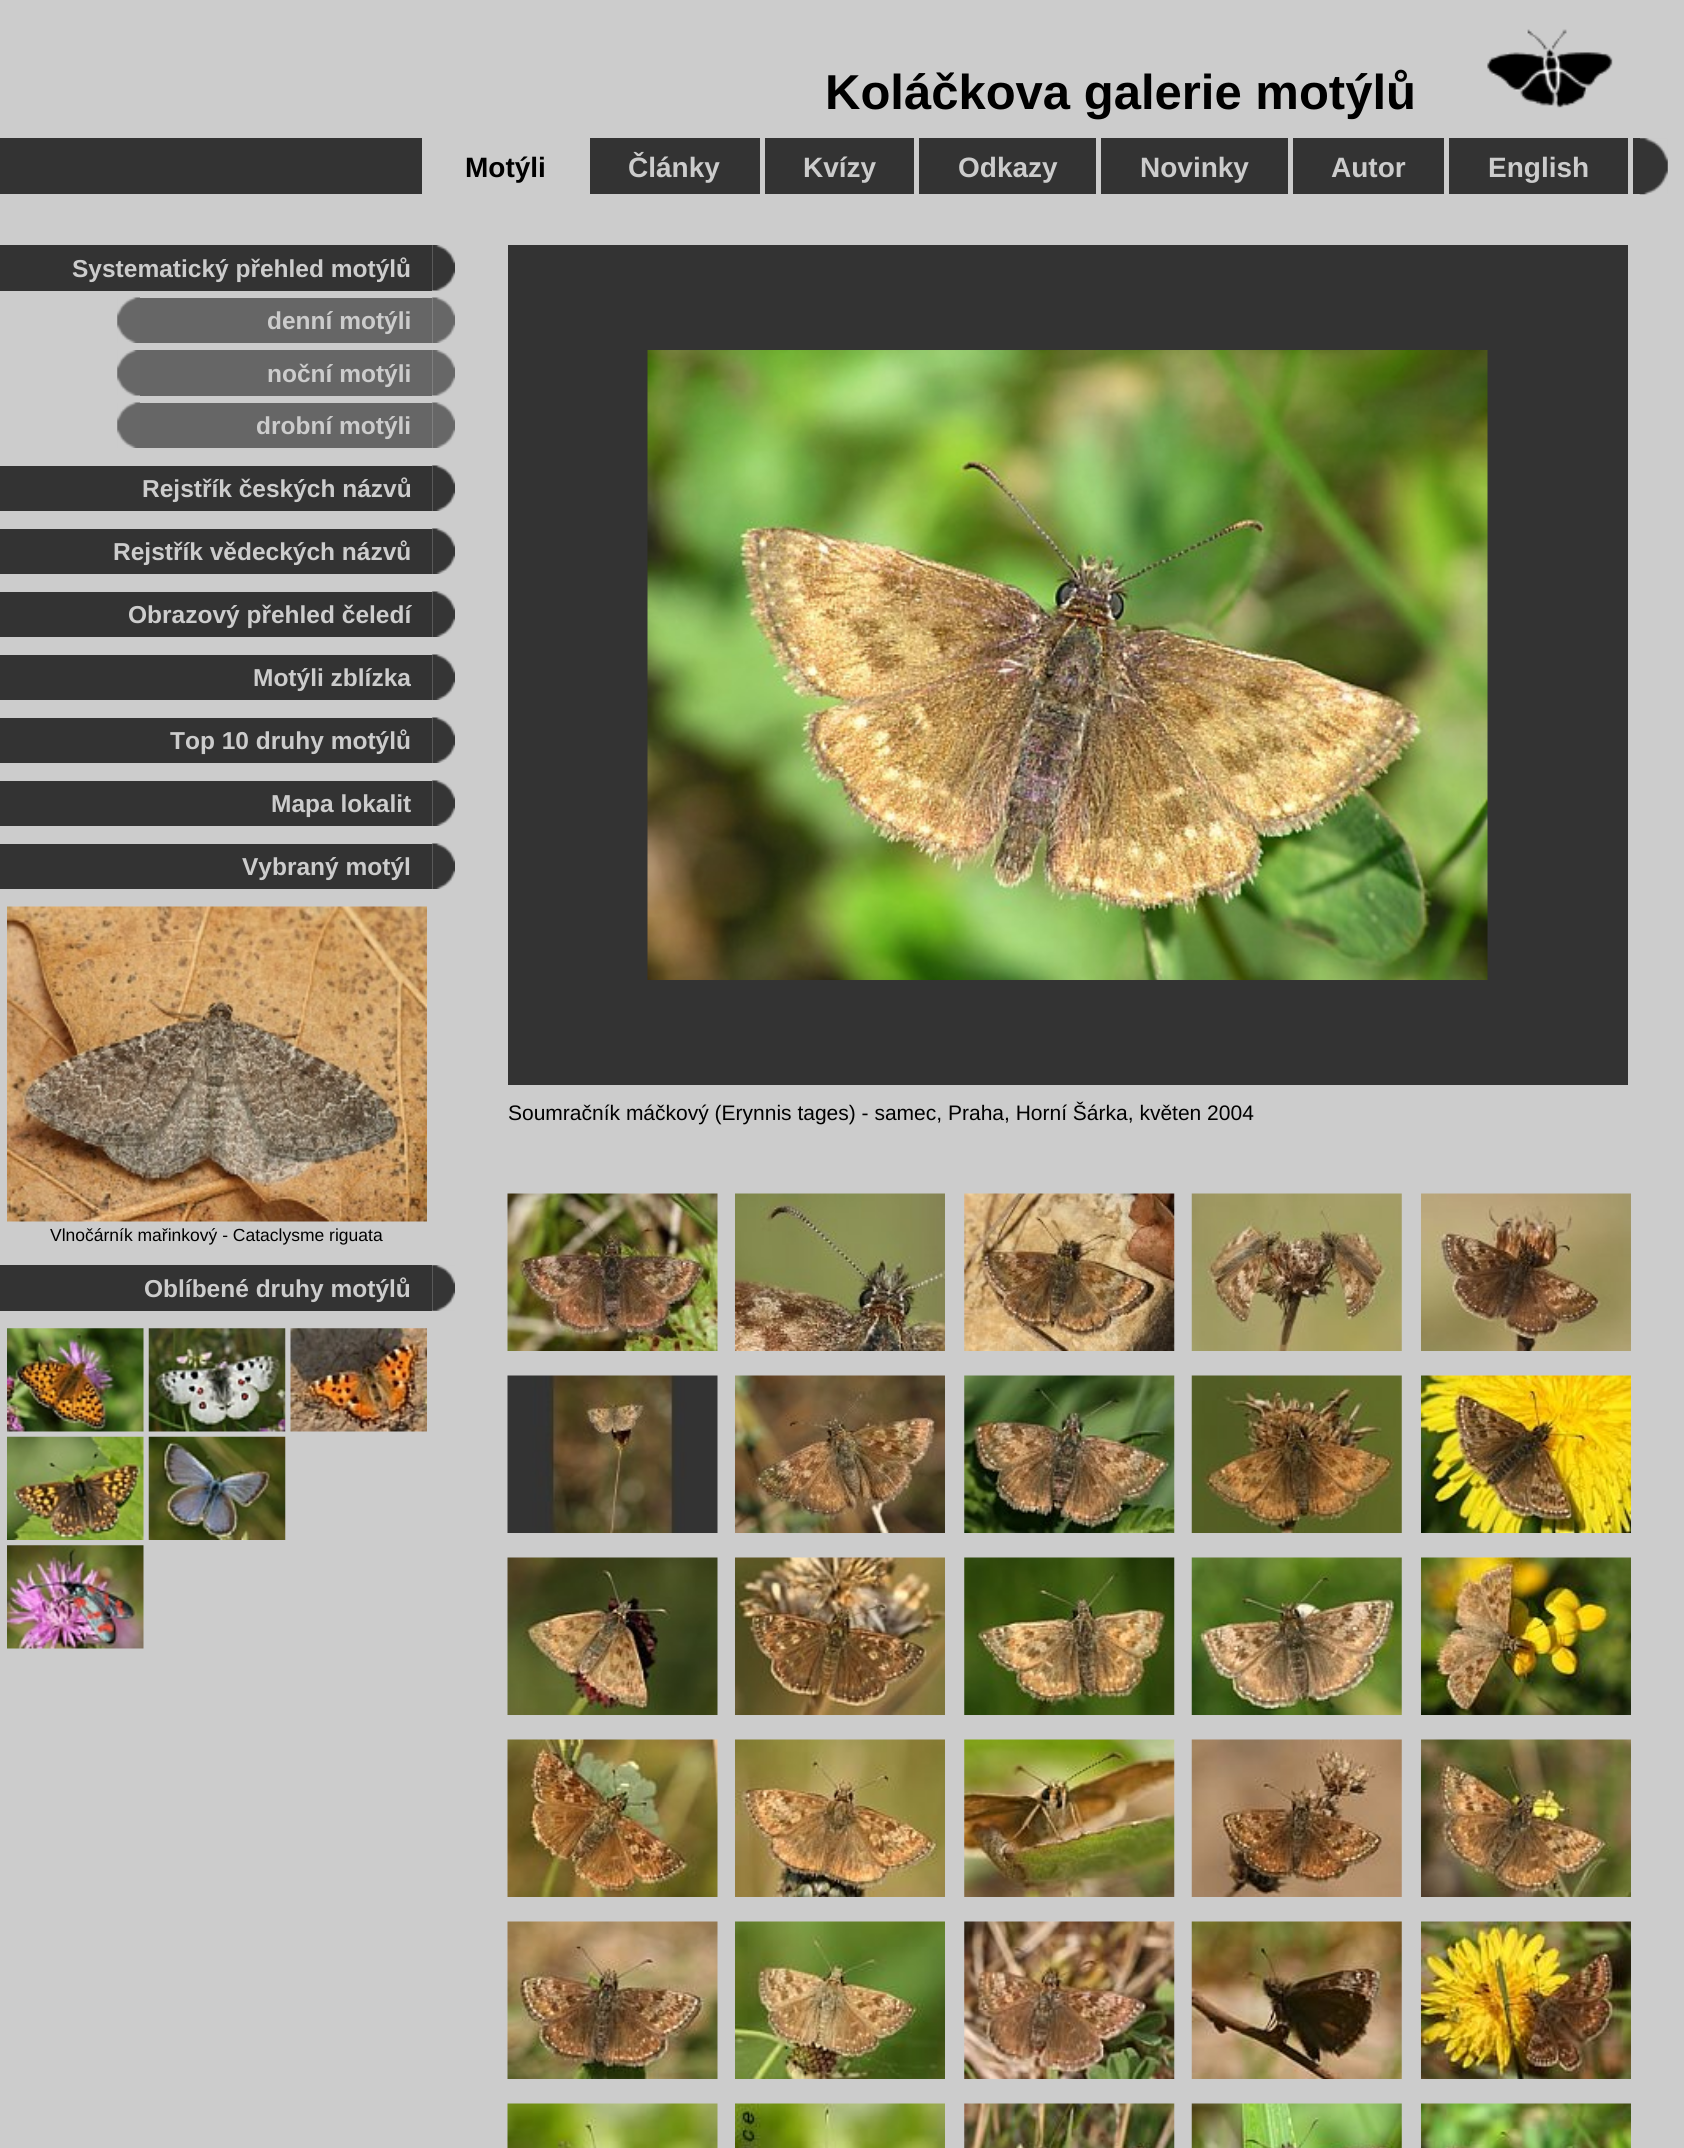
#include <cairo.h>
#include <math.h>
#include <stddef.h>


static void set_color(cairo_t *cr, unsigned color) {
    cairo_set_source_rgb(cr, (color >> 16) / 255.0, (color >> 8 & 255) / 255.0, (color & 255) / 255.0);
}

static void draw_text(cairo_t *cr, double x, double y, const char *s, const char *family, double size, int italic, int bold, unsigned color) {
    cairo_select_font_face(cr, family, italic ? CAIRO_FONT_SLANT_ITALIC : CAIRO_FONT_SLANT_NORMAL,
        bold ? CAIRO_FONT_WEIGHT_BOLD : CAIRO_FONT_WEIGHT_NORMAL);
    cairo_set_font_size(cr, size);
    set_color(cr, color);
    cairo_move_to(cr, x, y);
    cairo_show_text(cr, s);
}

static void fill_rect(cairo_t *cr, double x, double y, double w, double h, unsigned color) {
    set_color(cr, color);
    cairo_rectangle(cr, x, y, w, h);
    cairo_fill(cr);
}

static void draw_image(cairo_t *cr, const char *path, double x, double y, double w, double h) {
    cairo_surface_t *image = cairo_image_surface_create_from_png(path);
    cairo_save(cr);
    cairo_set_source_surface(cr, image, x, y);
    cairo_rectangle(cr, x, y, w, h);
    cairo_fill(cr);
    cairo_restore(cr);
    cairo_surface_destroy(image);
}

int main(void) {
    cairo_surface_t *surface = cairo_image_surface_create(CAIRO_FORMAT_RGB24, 1684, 2148);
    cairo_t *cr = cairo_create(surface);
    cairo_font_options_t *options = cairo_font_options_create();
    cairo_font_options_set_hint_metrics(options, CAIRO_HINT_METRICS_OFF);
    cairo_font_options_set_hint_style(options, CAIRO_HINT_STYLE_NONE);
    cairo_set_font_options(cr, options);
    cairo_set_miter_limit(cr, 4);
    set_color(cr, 0xCCCCCC);
    cairo_paint(cr);
    draw_text(cr, 825, 109, "Koláčkova galerie motýlů", "Liberation Sans", 49, 0, 1, 0x000000);
    draw_image(cr, "assets/img1.png", 1487, 29, 126, 79);
    fill_rect(cr, 0, 138, 1640, 56, 0x333333);
    fill_rect(cr, 422, 138, 168, 56, 0xCCCCCC);
    fill_rect(cr, 760, 138, 5, 56, 0xCCCCCC);
    draw_text(cr, 628, 177, "Články", "Liberation Sans", 28, 0, 1, 0xCCCCCC);
    draw_text(cr, 465, 177, "Motýli", "Liberation Sans", 28, 0, 1, 0x000000);
    fill_rect(cr, 914, 138, 5, 56, 0xCCCCCC);
    draw_text(cr, 803, 177, "Kvízy", "Liberation Sans", 28, 0, 1, 0xCCCCCC);
    fill_rect(cr, 1096, 138, 5, 56, 0xCCCCCC);
    draw_text(cr, 958, 177, "Odkazy", "Liberation Sans", 28, 0, 1, 0xCCCCCC);
    fill_rect(cr, 1288, 138, 5, 56, 0xCCCCCC);
    draw_text(cr, 1140, 177, "Novinky", "Liberation Sans", 28, 0, 1, 0xCCCCCC);
    fill_rect(cr, 1444, 138, 5, 56, 0xCCCCCC);
    draw_text(cr, 1331, 177, "Autor", "Liberation Sans", 28, 0, 1, 0xCCCCCC);
    fill_rect(cr, 1628, 138, 5, 56, 0xCCCCCC);
    draw_text(cr, 1488, 177, "English", "Liberation Sans", 28, 0, 1, 0xCCCCCC);
    draw_image(cr, "assets/img2.png", 1639, 138, 29, 57);
    fill_rect(cr, 0, 245, 432, 46, 0x333333);
    draw_text(cr, 72, 277, "Systematický přehled motýlů", "Liberation Sans", 24.5, 0, 1, 0xCCCCCC);
    draw_image(cr, "assets/img3.png", 432, 245, 23, 46);
    draw_image(cr, "assets/img4.png", 117, 297, 23, 46);
    fill_rect(cr, 140, 298, 292, 45, 0x666666);
    draw_text(cr, 267, 329, "denní motýli", "Liberation Sans", 24.5, 0, 1, 0xCCCCCC);
    draw_image(cr, "assets/img5.png", 432, 297, 23, 46);
    draw_image(cr, "assets/img6.png", 117, 350, 23, 46);
    fill_rect(cr, 140, 350, 292, 46, 0x666666);
    draw_text(cr, 267, 382, "noční motýli", "Liberation Sans", 24.5, 0, 1, 0xCCCCCC);
    draw_image(cr, "assets/img7.png", 432, 350, 23, 46);
    draw_image(cr, "assets/img4.png", 117, 402, 23, 46);
    fill_rect(cr, 140, 403, 292, 45, 0x666666);
    draw_text(cr, 256, 434, "drobní motýli", "Liberation Sans", 24.5, 0, 1, 0xCCCCCC);
    draw_image(cr, "assets/img5.png", 432, 402, 23, 46);
    fill_rect(cr, 0, 466, 432, 45, 0x333333);
    draw_text(cr, 142, 497, "Rejstřík českých názvů", "Liberation Sans", 24.5, 0, 1, 0xCCCCCC);
    draw_image(cr, "assets/img8.png", 432, 465, 23, 46);
    fill_rect(cr, 0, 529, 432, 45, 0x333333);
    draw_text(cr, 113, 560, "Rejstřík vědeckých názvů", "Liberation Sans", 24.5, 0, 1, 0xCCCCCC);
    draw_image(cr, "assets/img8.png", 432, 528, 23, 46);
    fill_rect(cr, 0, 592, 432, 45, 0x333333);
    draw_text(cr, 128, 623, "Obrazový přehled čeledí", "Liberation Sans", 24.5, 0, 1, 0xCCCCCC);
    draw_image(cr, "assets/img8.png", 432, 591, 23, 46);
    fill_rect(cr, 0, 655, 432, 45, 0x333333);
    draw_text(cr, 253, 686, "Motýli zblízka", "Liberation Sans", 24.5, 0, 1, 0xCCCCCC);
    draw_image(cr, "assets/img8.png", 432, 654, 23, 46);
    fill_rect(cr, 0, 718, 432, 45, 0x333333);
    draw_text(cr, 170, 749, "Top 10 druhy motýlů", "Liberation Sans", 24.5, 0, 1, 0xCCCCCC);
    draw_image(cr, "assets/img8.png", 432, 717, 23, 46);
    fill_rect(cr, 0, 781, 432, 45, 0x333333);
    draw_text(cr, 271, 812, "Mapa lokalit", "Liberation Sans", 24.5, 0, 1, 0xCCCCCC);
    draw_image(cr, "assets/img8.png", 432, 780, 23, 46);
    fill_rect(cr, 0, 844, 432, 45, 0x333333);
    draw_text(cr, 242, 875, "Vybraný motýl", "Liberation Sans", 24.5, 0, 1, 0xCCCCCC);
    draw_image(cr, "assets/img8.png", 432, 843, 23, 46);
    draw_image(cr, "assets/img9.png", 7, 906, 420, 316);
    draw_text(cr, 50, 1241, "Vlnočárník mařinkový - Cataclysme riguata", "Liberation Sans", 17.5, 0, 0, 0x000000);
    fill_rect(cr, 0, 1265, 432, 46, 0x333333);
    draw_text(cr, 144, 1297, "Oblíbené druhy motýlů", "Liberation Sans", 24.5, 0, 1, 0xCCCCCC);
    draw_image(cr, "assets/img10.png", 432, 1265, 23, 46);
    draw_image(cr, "assets/img11.png", 7, 1328, 137, 104);
    draw_image(cr, "assets/img12.png", 148, 1328, 138, 104);
    draw_image(cr, "assets/img13.png", 290, 1328, 137, 104);
    draw_image(cr, "assets/img14.png", 7, 1436, 137, 104);
    draw_image(cr, "assets/img15.png", 148, 1436, 138, 104);
    draw_image(cr, "assets/img16.png", 7, 1545, 137, 104);
    fill_rect(cr, 508, 245, 140, 840, 0x333333);
    fill_rect(cr, 648, 245, 840, 105, 0x333333);
    fill_rect(cr, 1488, 245, 140, 735, 0x333333);
    fill_rect(cr, 1487, 350, 1, 630, 0x333333);
    draw_image(cr, "assets/img17.png", 647, 350, 841, 630);
    fill_rect(cr, 648, 980, 980, 105, 0x333333);
    draw_text(cr, 508, 1120, "Soumračník máčkový (Erynnis tages) - samec, Praha, Horní Šárka, květen 2004", "Liberation Sans", 21, 0, 0, 0x000000);
    draw_image(cr, "assets/img18.png", 507, 1193, 211, 158);
    draw_image(cr, "assets/img19.png", 735, 1193, 210, 158);
    draw_image(cr, "assets/img20.png", 964, 1193, 211, 158);
    draw_image(cr, "assets/img21.png", 1191, 1193, 211, 158);
    draw_image(cr, "assets/img22.png", 1421, 1193, 210, 158);
    draw_image(cr, "assets/img23.png", 507, 1375, 211, 158);
    draw_image(cr, "assets/img24.png", 735, 1375, 210, 158);
    draw_image(cr, "assets/img25.png", 964, 1375, 211, 158);
    draw_image(cr, "assets/img26.png", 1191, 1375, 211, 158);
    draw_image(cr, "assets/img27.png", 1421, 1375, 210, 158);
    draw_image(cr, "assets/img28.png", 507, 1557, 211, 158);
    draw_image(cr, "assets/img29.png", 735, 1557, 210, 158);
    draw_image(cr, "assets/img30.png", 964, 1557, 211, 158);
    draw_image(cr, "assets/img31.png", 1191, 1557, 211, 158);
    draw_image(cr, "assets/img32.png", 1421, 1557, 210, 158);
    draw_image(cr, "assets/img33.png", 507, 1739, 211, 158);
    draw_image(cr, "assets/img34.png", 735, 1739, 210, 158);
    draw_image(cr, "assets/img35.png", 964, 1739, 211, 158);
    draw_image(cr, "assets/img36.png", 1191, 1739, 211, 158);
    draw_image(cr, "assets/img37.png", 1421, 1739, 210, 158);
    draw_image(cr, "assets/img38.png", 507, 1921, 211, 158);
    draw_image(cr, "assets/img39.png", 735, 1921, 210, 158);
    draw_image(cr, "assets/img40.png", 964, 1921, 211, 158);
    draw_image(cr, "assets/img41.png", 1191, 1921, 211, 158);
    draw_image(cr, "assets/img42.png", 1421, 1921, 210, 158);
    draw_image(cr, "assets/img43.png", 507, 2103, 211, 45);
    draw_image(cr, "assets/img44.png", 735, 2103, 210, 45);
    draw_image(cr, "assets/img45.png", 964, 2103, 211, 45);
    draw_image(cr, "assets/img46.png", 1191, 2103, 211, 45);
    draw_image(cr, "assets/img47.png", 1421, 2103, 210, 45);
    cairo_surface_write_to_png(surface, "output.png");
    cairo_font_options_destroy(options);
    cairo_destroy(cr);
    cairo_surface_destroy(surface);
    return 0;
}
